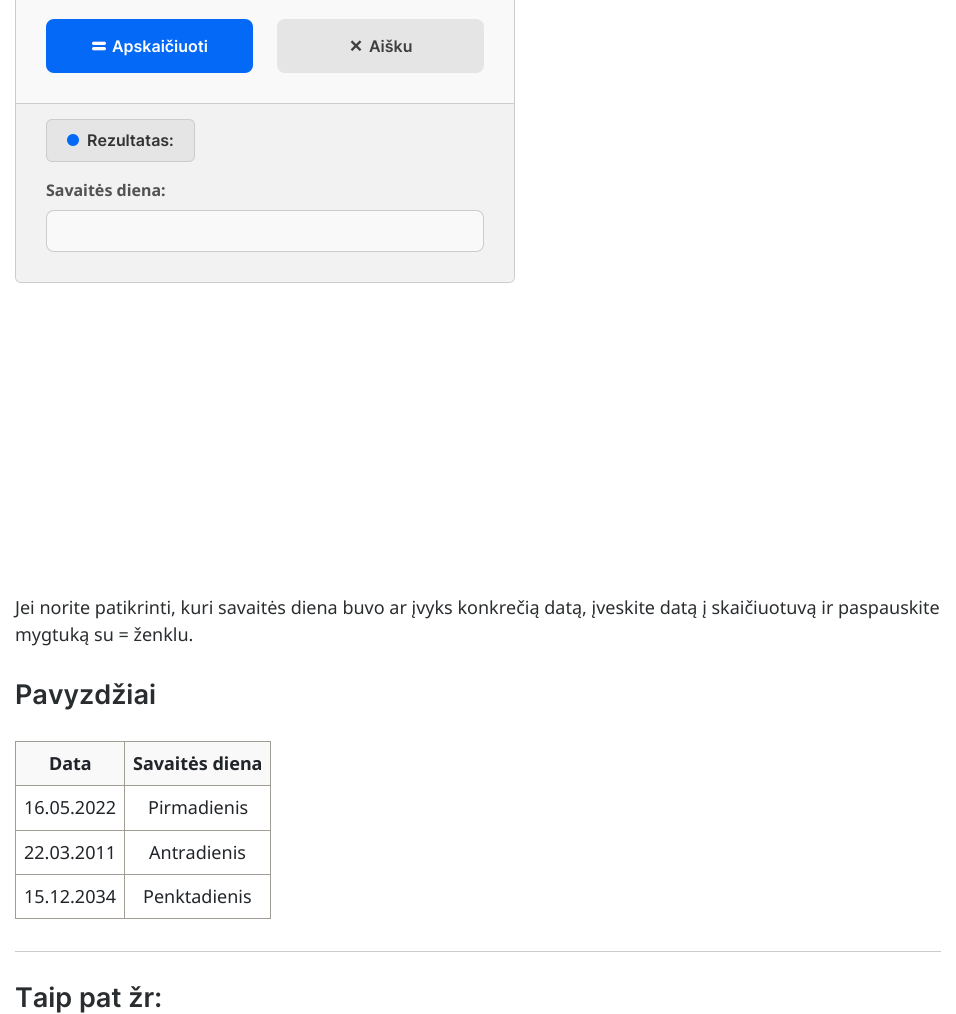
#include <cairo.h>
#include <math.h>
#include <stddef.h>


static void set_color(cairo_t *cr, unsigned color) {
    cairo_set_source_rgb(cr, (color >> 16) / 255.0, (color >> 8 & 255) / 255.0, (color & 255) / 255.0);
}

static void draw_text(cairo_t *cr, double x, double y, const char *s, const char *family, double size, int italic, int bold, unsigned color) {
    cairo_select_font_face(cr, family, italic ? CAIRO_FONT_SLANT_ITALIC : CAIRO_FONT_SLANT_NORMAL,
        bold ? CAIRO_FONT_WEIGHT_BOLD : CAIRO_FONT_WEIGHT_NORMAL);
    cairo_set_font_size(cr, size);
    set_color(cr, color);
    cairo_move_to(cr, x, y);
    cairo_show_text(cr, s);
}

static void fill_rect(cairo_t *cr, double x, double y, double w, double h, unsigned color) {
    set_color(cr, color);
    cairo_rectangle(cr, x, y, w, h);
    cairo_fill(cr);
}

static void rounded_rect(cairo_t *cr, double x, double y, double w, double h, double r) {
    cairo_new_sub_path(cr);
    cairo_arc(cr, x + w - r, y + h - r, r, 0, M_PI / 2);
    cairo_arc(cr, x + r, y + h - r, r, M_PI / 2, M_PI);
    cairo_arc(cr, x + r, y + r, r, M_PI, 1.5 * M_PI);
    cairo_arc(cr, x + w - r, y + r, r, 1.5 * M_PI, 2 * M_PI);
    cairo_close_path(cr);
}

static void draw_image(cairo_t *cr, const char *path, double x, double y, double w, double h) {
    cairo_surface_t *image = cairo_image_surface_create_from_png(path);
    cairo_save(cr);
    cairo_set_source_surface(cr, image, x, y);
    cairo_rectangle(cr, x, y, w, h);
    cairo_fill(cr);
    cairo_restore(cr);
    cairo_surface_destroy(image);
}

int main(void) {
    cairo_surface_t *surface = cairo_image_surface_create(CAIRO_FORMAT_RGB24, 956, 1014);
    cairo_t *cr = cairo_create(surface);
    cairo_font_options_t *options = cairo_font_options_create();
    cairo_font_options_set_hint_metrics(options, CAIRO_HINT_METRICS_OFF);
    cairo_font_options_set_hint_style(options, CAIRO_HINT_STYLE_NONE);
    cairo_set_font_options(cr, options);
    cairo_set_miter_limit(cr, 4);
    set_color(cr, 0xFFFFFF);
    cairo_paint(cr);
    set_color(cr, 0xF9F9F9);
    rounded_rect(cr, 15.5, -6.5, 499, 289, 5.5);
    cairo_fill_preserve(cr);
    set_color(cr, 0xCCCCCC);
    cairo_set_line_width(cr, 1);
    cairo_stroke(cr);
    set_color(cr, 0x0369F6);
    rounded_rect(cr, 46, 19, 207, 54, 8);
    cairo_fill(cr);
    draw_image(cr, "assets/img1.png", 92, 41, 14, 10);
    draw_text(cr, 112, 52, "Apskaičiuoti", "Inter SemiBold", 16, 0, 0, 0xFFFFFF);
    set_color(cr, 0xE5E5E5);
    rounded_rect(cr, 277, 19, 207, 54, 8);
    cairo_fill(cr);
    draw_image(cr, "assets/img2.png", 350, 40, 12, 11);
    draw_text(cr, 369, 52, "Aišku", "Inter SemiBold", 16, 0, 0, 0x3F3F3F);
    set_color(cr, 0xF2F2F2);
    cairo_new_path(cr);
    cairo_move_to(cr, 16, 103);
    cairo_line_to(cr, 514, 103);
    cairo_line_to(cr, 514, 276);
    cairo_curve_to(cr, 514, 279.5, 511.5, 282, 508, 282);
    cairo_line_to(cr, 22, 282);
    cairo_curve_to(cr, 18.5, 282, 16, 279.5, 16, 276);
    cairo_close_path(cr);
    cairo_fill(cr);
    fill_rect(cr, 16, 103, 498, 1, 0xCCCCCC);
    set_color(cr, 0xE5E5E5);
    rounded_rect(cr, 46.5, 119.5, 148, 42, 5.5);
    cairo_fill_preserve(cr);
    set_color(cr, 0xCCCCCC);
    cairo_stroke(cr);
    set_color(cr, 0x0369F6);
    cairo_arc(cr, 73, 140, 6, 0, 2 * M_PI);
    cairo_fill(cr);
    draw_text(cr, 87, 146, "Rezultatas:", "Inter SemiBold", 16, 0, 0, 0x333333);
    draw_text(cr, 46, 196, "Savaitės diena:", "Noto Sans", 16, 0, 1, 0x525252);
    set_color(cr, 0xF9F9F9);
    rounded_rect(cr, 46.5, 210.5, 437, 41, 7.5);
    cairo_fill_preserve(cr);
    set_color(cr, 0xCCCCCC);
    cairo_stroke(cr);
    draw_text(cr, 15, 614, "Jei norite patikrinti, kuri savaitės diena buvo ar įvyks konkrečią datą, įveskite datą į skaičiuotuvą ir paspauskite", "Noto Sans", 18, 0, 0, 0x2A2D2F);
    draw_text(cr, 15, 641, "mygtuką su = ženklu.", "Noto Sans", 18, 0, 0, 0x2A2D2F);
    draw_text(cr, 15, 704, "Pavyzdžiai", "Inter SemiBold", 27, 0, 0, 0x2A2D2F);
    fill_rect(cr, 16, 742, 254, 43, 0xF9F9F9);
    fill_rect(cr, 15, 741, 256, 1, 0xA09D96);
    fill_rect(cr, 15, 785, 256, 1, 0xA09D96);
    draw_text(cr, 49, 770, "Data", "Noto Sans", 18, 0, 1, 0x212529);
    draw_text(cr, 133, 770, "Savaitės diena", "Noto Sans", 18, 0, 1, 0x212529);
    fill_rect(cr, 15, 830, 256, 1, 0xA09D96);
    draw_text(cr, 24, 814, "16.05.2022", "Noto Sans", 18, 0, 0, 0x212529);
    draw_text(cr, 148, 814, "Pirmadienis", "Noto Sans", 18, 0, 0, 0x212529);
    fill_rect(cr, 15, 874, 256, 1, 0xA09D96);
    draw_text(cr, 24, 859, "22.03.2011", "Noto Sans", 18, 0, 0, 0x212529);
    draw_text(cr, 149, 859, "Antradienis", "Noto Sans", 18, 0, 0, 0x212529);
    fill_rect(cr, 15, 918, 256, 1, 0xA09D96);
    fill_rect(cr, 15, 741, 1, 178, 0xA09D96);
    draw_text(cr, 24, 903, "15.12.2034", "Noto Sans", 18, 0, 0, 0x212529);
    fill_rect(cr, 270, 741, 1, 178, 0xA09D96);
    fill_rect(cr, 124, 741, 1, 178, 0xA09D96);
    draw_text(cr, 143, 903, "Penktadienis", "Noto Sans", 18, 0, 0, 0x212529);
    fill_rect(cr, 15, 951, 926, 1, 0xCACBCB);
    draw_text(cr, 15, 1007, "Taip pat žr:", "Inter SemiBold", 27, 0, 0, 0x2A2D2F);
    cairo_surface_write_to_png(surface, "output.png");
    cairo_font_options_destroy(options);
    cairo_destroy(cr);
    cairo_surface_destroy(surface);
    return 0;
}
